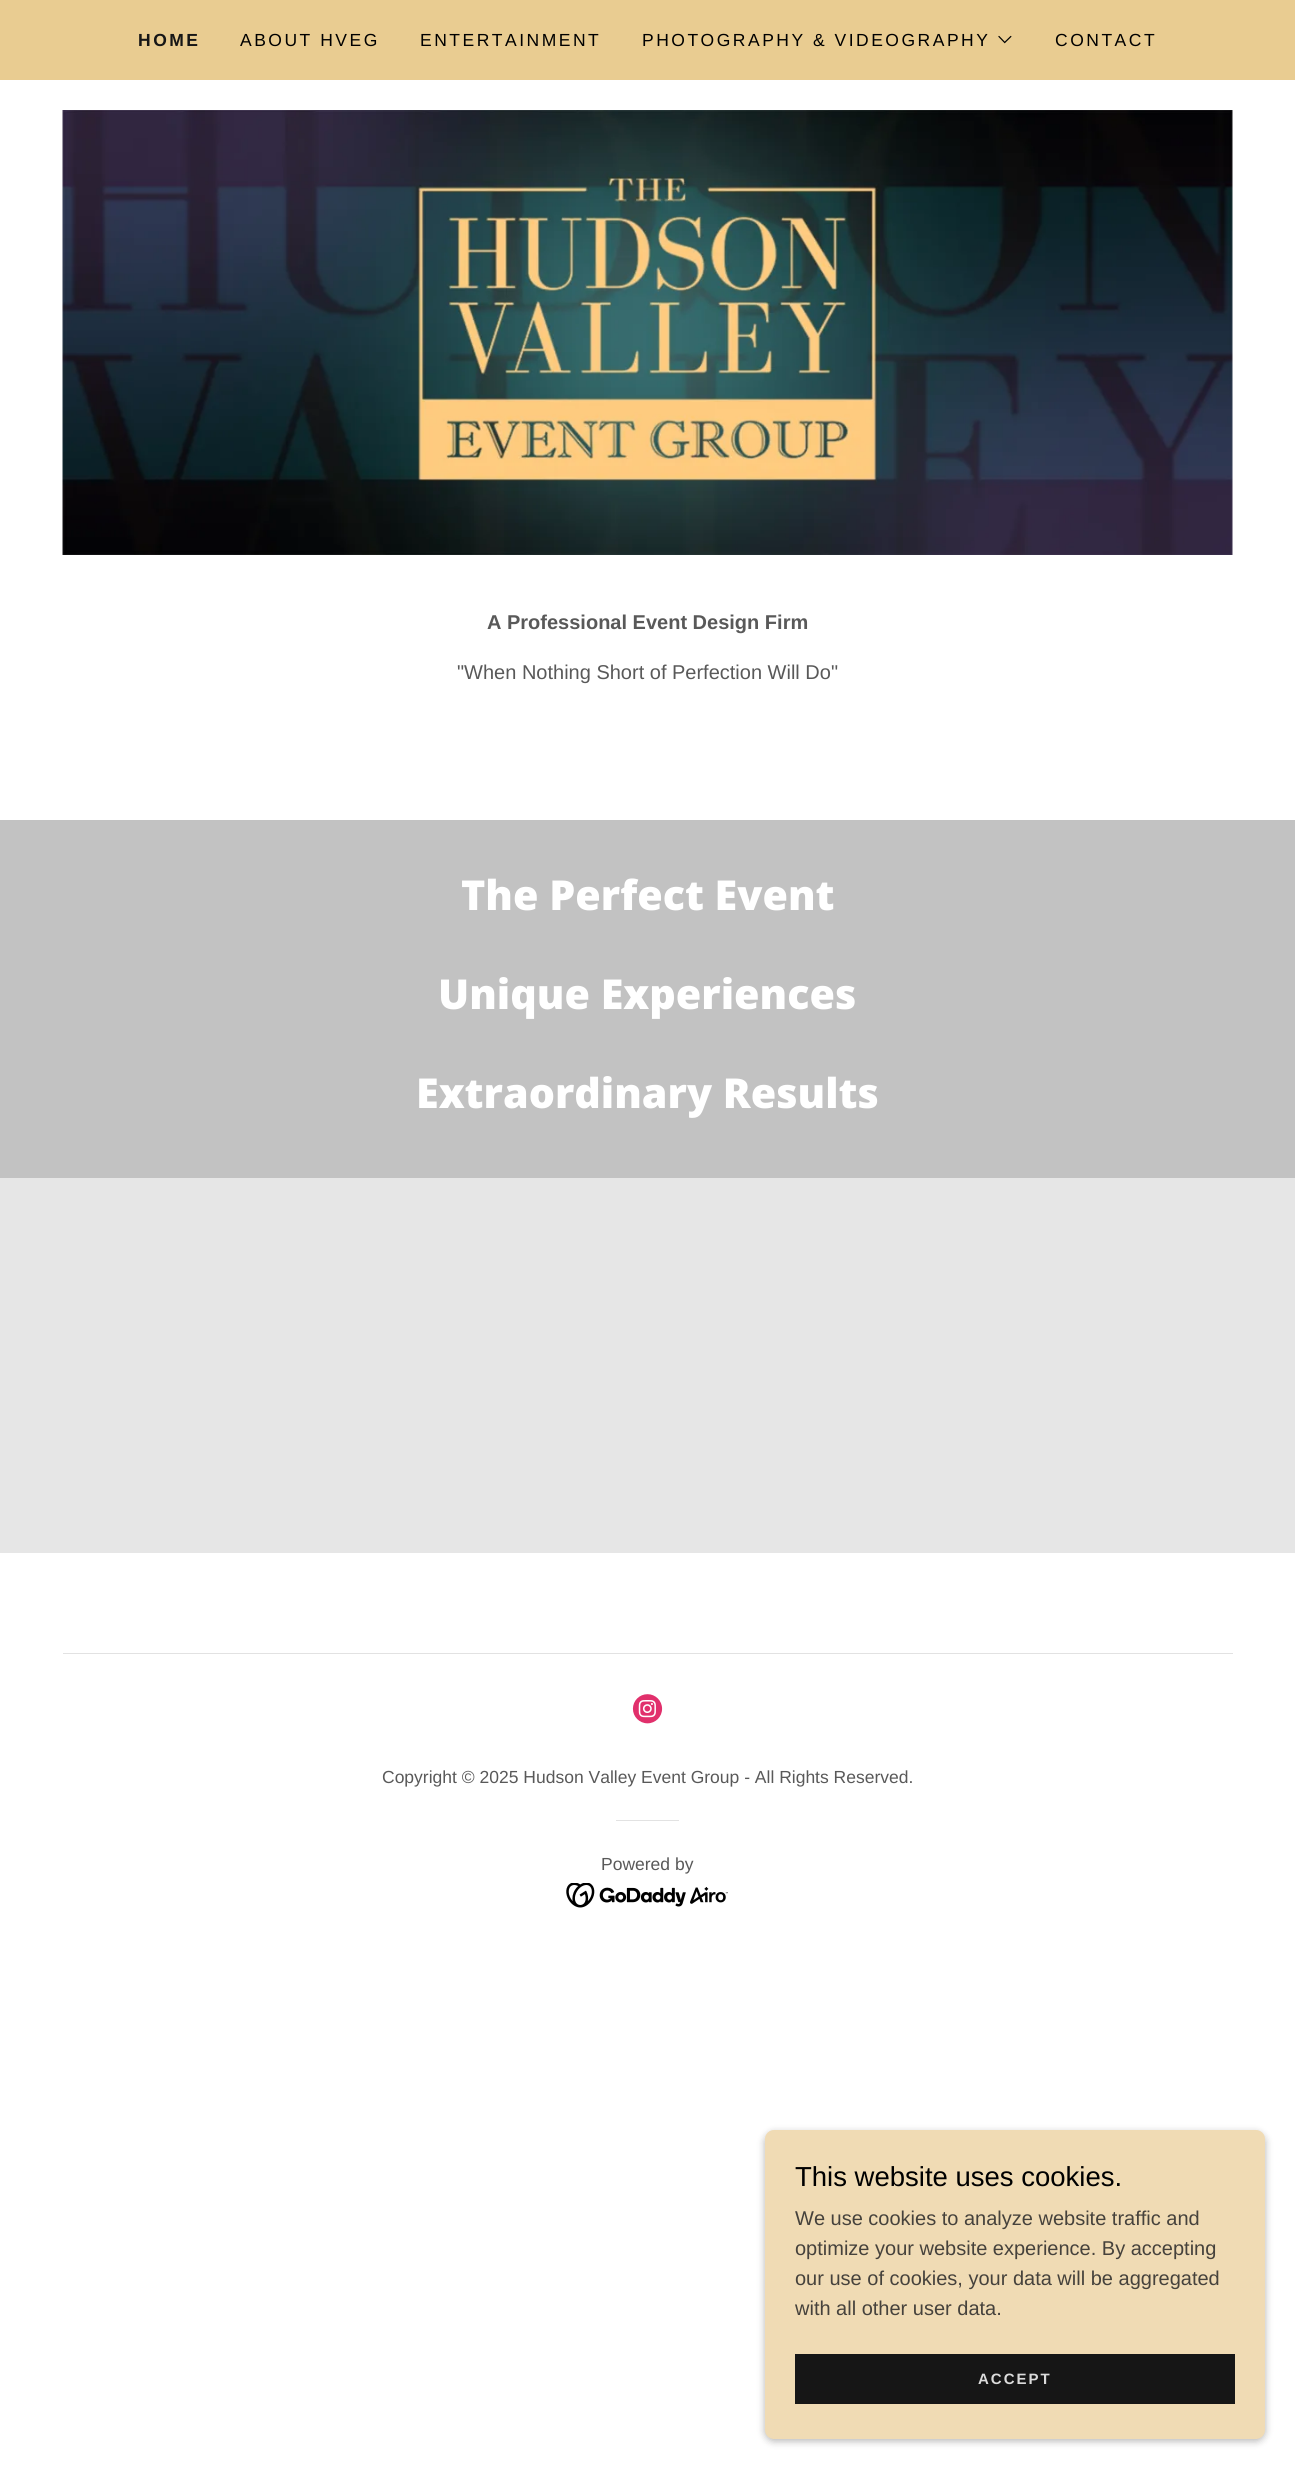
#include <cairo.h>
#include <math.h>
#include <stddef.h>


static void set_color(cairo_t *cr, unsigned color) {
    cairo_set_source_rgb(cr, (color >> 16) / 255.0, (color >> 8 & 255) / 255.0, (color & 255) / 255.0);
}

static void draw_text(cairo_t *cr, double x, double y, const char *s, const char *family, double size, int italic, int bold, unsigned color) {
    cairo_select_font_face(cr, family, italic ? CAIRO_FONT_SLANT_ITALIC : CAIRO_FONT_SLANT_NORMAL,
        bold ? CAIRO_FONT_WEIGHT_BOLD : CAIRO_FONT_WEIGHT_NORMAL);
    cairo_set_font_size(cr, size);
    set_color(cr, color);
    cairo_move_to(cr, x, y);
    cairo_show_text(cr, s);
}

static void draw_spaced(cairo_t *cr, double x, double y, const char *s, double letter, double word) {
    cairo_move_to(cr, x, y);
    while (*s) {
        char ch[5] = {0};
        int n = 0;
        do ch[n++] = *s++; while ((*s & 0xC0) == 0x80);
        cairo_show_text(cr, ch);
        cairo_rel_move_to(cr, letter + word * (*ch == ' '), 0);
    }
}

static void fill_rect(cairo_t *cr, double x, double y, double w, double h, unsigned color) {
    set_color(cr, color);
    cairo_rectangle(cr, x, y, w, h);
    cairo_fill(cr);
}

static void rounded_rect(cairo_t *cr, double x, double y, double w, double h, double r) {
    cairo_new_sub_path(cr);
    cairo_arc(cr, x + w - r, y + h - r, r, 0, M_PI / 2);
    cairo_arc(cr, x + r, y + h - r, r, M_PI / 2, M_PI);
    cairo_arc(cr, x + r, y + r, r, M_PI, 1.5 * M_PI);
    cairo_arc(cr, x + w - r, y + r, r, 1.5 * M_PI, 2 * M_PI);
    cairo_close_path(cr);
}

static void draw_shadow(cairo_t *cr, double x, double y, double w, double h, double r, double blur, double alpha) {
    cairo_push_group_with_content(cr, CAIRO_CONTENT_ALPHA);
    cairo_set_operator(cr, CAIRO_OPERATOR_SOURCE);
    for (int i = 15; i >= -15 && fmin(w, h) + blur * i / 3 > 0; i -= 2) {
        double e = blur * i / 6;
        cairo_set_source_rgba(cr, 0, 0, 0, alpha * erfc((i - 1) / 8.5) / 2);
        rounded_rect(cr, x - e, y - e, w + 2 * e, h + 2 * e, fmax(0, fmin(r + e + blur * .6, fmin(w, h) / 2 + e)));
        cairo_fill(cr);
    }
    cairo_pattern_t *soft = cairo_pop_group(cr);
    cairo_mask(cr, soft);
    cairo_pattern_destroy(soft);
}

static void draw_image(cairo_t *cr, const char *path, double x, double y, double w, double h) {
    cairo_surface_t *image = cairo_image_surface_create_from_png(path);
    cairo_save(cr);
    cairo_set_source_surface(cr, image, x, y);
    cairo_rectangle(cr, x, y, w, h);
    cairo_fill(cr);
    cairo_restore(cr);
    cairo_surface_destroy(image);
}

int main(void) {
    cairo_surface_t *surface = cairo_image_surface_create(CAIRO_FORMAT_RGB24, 1295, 2468);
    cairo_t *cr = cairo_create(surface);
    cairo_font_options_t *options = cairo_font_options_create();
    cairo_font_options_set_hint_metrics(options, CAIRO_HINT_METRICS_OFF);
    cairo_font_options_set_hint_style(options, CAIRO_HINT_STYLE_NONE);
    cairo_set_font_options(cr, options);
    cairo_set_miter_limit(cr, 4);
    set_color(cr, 0xFFFFFF);
    cairo_paint(cr);
    fill_rect(cr, 0, 0, 1295, 80, 0xE9CC91);
    cairo_select_font_face(cr, "Liberation Sans", CAIRO_FONT_SLANT_NORMAL, CAIRO_FONT_WEIGHT_BOLD);
    cairo_set_font_size(cr, 17.5);
    set_color(cr, 0x161616);
    draw_spaced(cr, 138, 46, "HOME", 2.5, 0);
    cairo_select_font_face(cr, "Liberation Sans", CAIRO_FONT_SLANT_NORMAL, CAIRO_FONT_WEIGHT_NORMAL);
    set_color(cr, 0x000000);
    draw_spaced(cr, 240, 46, "ABOUT HVEG", 2.5, 0);
    draw_spaced(cr, 420, 46, "ENTERTAINMENT", 2.5, 0);
    draw_spaced(cr, 642, 46, "PHOTOGRAPHY & VIDEOGRAPHY", 2.5, 0);
    draw_image(cr, "assets/img1.png", 998, 35, 14, 9);
    draw_spaced(cr, 1055, 46, "CONTACT", 2.5, 0);
    draw_image(cr, "assets/img2.png", 62, 110, 1171, 445);
    draw_text(cr, 487, 629, "A Professional Event Design Firm", "Liberation Sans", 20, 0, 1, 0x595959);
    draw_text(cr, 457, 679, "\"When Nothing Short of Perfection Will Do\"", "Liberation Sans", 20, 0, 0, 0x595959);
    fill_rect(cr, 0, 820, 1295, 358, 0xC2C2C2);
    draw_text(cr, 461, 910, "The Perfect Event", "Open Sans ExtraBold", 41.25, 0, 0, 0xFFFFFF);
    draw_text(cr, 438, 1009, "Unique Experiences", "Open Sans ExtraBold", 41.25, 0, 0, 0xFFFFFF);
    draw_text(cr, 416, 1108, "Extraordinary Results", "Open Sans ExtraBold", 41.25, 0, 0, 0xFFFFFF);
    fill_rect(cr, 0, 1178, 1295, 375, 0xE6E6E6);
    fill_rect(cr, 63, 1653, 1170, 1, 0xE2E2E2);
    draw_image(cr, "assets/img3.png", 632, 1694, 31, 30);
    draw_text(cr, 382, 1783, "Copyright © 2025 Hudson Valley Event Group - All Rights Reserved.", "Liberation Sans", 17.5, 0, 0, 0x595959);
    fill_rect(cr, 616, 1820, 63, 1, 0xE2E2E2);
    draw_text(cr, 601, 1870, "Powered by", "Liberation Sans", 17.5, 0, 0, 0x595959);
    draw_image(cr, "assets/img4.png", 566, 1883, 162, 25);
    set_color(cr, 0x000000);
    draw_shadow(cr, 765, 2133, 500, 308, 9, 4, 0.3);
    set_color(cr, 0xF0DBB4);
    rounded_rect(cr, 765, 2130, 500, 309, 9);
    cairo_fill(cr);
    draw_text(cr, 795, 2186, "This website uses cookies.", "Liberation Sans", 27.5, 0, 0, 0x000000);
    draw_text(cr, 795, 2225, "We use cookies to analyze website traffic and", "Liberation Sans", 20, 0, 0, 0x46423C);
    draw_text(cr, 795, 2255, "optimize your website experience. By accepting", "Liberation Sans", 20, 0, 0, 0x46423C);
    draw_text(cr, 795, 2285, "our use of cookies, your data will be aggregated", "Liberation Sans", 20, 0, 0, 0x46423C);
    draw_text(cr, 795, 2315, "with all other user data.", "Liberation Sans", 20, 0, 0, 0x46423C);
    fill_rect(cr, 795, 2354, 440, 50, 0x161616);
    cairo_select_font_face(cr, "Liberation Sans", CAIRO_FONT_SLANT_NORMAL, CAIRO_FONT_WEIGHT_BOLD);
    cairo_set_font_size(cr, 15);
    set_color(cr, 0xDBDBDB);
    draw_spaced(cr, 978, 2384, "ACCEPT", 2, 0);
    cairo_surface_write_to_png(surface, "output.png");
    cairo_font_options_destroy(options);
    cairo_destroy(cr);
    cairo_surface_destroy(surface);
    return 0;
}
